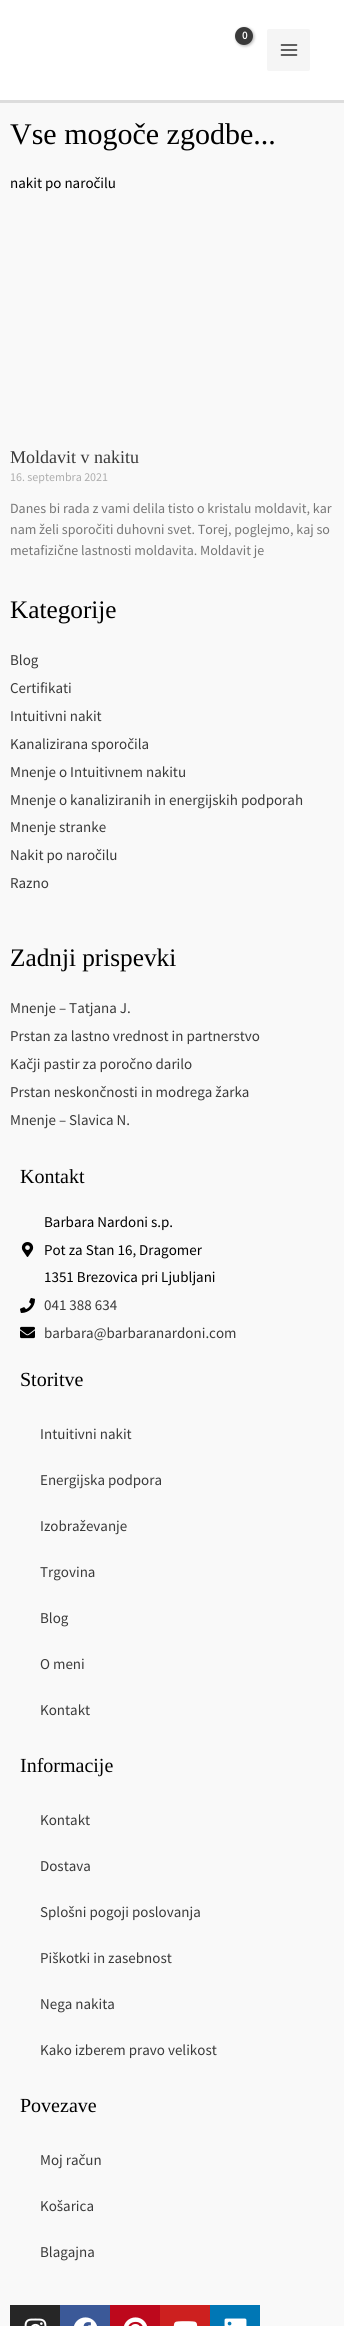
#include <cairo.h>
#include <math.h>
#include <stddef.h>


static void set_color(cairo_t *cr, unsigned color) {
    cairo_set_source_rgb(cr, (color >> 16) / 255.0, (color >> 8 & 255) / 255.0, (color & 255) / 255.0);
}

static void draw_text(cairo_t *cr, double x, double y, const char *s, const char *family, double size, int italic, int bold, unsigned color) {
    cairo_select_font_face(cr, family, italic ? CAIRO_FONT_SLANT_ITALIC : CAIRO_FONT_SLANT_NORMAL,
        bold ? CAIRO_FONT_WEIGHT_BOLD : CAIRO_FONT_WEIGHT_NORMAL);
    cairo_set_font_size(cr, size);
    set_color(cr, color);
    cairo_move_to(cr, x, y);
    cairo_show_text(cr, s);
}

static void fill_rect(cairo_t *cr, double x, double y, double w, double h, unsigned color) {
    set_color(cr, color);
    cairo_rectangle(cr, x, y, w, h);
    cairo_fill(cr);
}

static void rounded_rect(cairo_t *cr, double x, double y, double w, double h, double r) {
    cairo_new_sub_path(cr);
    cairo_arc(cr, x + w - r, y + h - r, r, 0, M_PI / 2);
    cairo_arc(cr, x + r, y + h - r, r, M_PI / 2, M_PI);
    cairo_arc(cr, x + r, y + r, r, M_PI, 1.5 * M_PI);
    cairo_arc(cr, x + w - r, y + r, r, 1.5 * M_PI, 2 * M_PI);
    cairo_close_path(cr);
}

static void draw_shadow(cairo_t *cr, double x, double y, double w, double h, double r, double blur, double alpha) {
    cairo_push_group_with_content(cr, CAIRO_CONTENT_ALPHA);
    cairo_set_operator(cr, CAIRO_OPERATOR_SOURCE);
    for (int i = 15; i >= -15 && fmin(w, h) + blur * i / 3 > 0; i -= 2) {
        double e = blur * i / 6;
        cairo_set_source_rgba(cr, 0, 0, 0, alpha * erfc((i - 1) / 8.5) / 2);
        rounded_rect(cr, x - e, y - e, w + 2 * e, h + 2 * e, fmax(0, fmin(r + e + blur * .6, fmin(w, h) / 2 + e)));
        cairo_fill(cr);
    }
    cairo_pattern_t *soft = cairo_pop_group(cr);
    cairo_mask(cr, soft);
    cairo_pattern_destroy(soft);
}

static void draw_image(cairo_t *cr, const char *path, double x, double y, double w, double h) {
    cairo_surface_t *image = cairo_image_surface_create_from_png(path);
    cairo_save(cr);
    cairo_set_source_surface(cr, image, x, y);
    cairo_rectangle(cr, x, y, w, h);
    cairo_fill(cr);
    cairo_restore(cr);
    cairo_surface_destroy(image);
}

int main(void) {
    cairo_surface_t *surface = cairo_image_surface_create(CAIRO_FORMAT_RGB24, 344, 2326);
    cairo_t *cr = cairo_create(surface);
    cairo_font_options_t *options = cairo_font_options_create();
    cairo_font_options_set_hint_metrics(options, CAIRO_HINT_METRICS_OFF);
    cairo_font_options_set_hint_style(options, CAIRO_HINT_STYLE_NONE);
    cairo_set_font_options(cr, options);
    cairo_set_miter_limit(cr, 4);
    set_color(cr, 0xF9F9F9);
    cairo_paint(cr);
    fill_rect(cr, 0, 0, 344, 100, 0xFFFFFF);
    fill_rect(cr, 0, 100, 344, 3, 0xDDDDDD);
    set_color(cr, 0x000000);
    draw_shadow(cr, 236, 28, 18, 18, 9, 1.5, 0.3);
    set_color(cr, 0x3A3A3A);
    cairo_arc(cr, 244, 36, 9, 0, 2 * M_PI);
    cairo_fill(cr);
    draw_text(cr, 242, 39, "0", "Source Sans Pro", 11, 0, 1, 0xFFFFFF);
    set_color(cr, 0xF5F5F5);
    rounded_rect(cr, 267, 29, 43, 42, 2);
    cairo_fill(cr);
    draw_image(cr, "assets/img1.png", 280, 44, 18, 12);
    draw_text(cr, 10, 144, "Vse mogoče zgodbe...", "Liberation Serif", 30, 0, 0, 0x000000);
    draw_text(cr, 10, 188, "nakit po naročilu", "Source Sans Pro", 15, 0, 0, 0x000000);
    draw_text(cr, 10, 463, "Moldavit v nakitu", "Liberation Serif", 18, 0, 0, 0x3A3A3A);
    draw_text(cr, 10, 481, "16. septembra 2021", "Source Sans Pro", 12, 0, 0, 0xADADAD);
    draw_text(cr, 10, 513, "Danes bi rada z vami delila tisto o kristalu moldavit, kar", "Source Sans Pro", 14, 0, 0, 0x777777);
    draw_text(cr, 10, 534, "nam želi sporočiti duhovni svet. Torej, poglejmo, kaj so", "Source Sans Pro", 14, 0, 0, 0x777777);
    draw_text(cr, 10, 555, "metafizične lastnosti moldavita. Moldavit je", "Source Sans Pro", 14, 0, 0, 0x777777);
    draw_text(cr, 10, 618, "Kategorije", "Liberation Serif", 25.25, 0, 0, 0x000000);
    draw_text(cr, 10, 665, "Blog", "Source Sans Pro", 15, 0, 0, 0x3A3A3A);
    draw_text(cr, 10, 693, "Certifikati", "Source Sans Pro", 15, 0, 0, 0x3A3A3A);
    draw_text(cr, 10, 721, "Intuitivni nakit", "Source Sans Pro", 15, 0, 0, 0x3A3A3A);
    draw_text(cr, 10, 749, "Kanalizirana sporočila", "Source Sans Pro", 15, 0, 0, 0x3A3A3A);
    draw_text(cr, 10, 777, "Mnenje o Intuitivnem nakitu", "Source Sans Pro", 15, 0, 0, 0x3A3A3A);
    draw_text(cr, 10, 805, "Mnenje o kanaliziranih in energijskih podporah", "Source Sans Pro", 15, 0, 0, 0x3A3A3A);
    draw_text(cr, 10, 832, "Mnenje stranke", "Source Sans Pro", 15, 0, 0, 0x3A3A3A);
    draw_text(cr, 10, 860, "Nakit po naročilu", "Source Sans Pro", 15, 0, 0, 0x3A3A3A);
    draw_text(cr, 10, 888, "Razno", "Source Sans Pro", 15, 0, 0, 0x3A3A3A);
    draw_text(cr, 10, 966, "Zadnji prispevki", "Liberation Serif", 25.25, 0, 0, 0x000000);
    draw_text(cr, 10, 1013, "Mnenje – Tatjana J.", "Source Sans Pro", 15, 0, 0, 0x3A3A3A);
    draw_text(cr, 10, 1041, "Prstan za lastno vrednost in partnerstvo", "Source Sans Pro", 15, 0, 0, 0x3A3A3A);
    draw_text(cr, 10, 1069, "Kačji pastir za poročno darilo", "Source Sans Pro", 15, 0, 0, 0x3A3A3A);
    draw_text(cr, 10, 1097, "Prstan neskončnosti in modrega žarka", "Source Sans Pro", 15, 0, 0, 0x3A3A3A);
    draw_text(cr, 10, 1125, "Mnenje – Slavica N.", "Source Sans Pro", 15, 0, 0, 0x3A3A3A);
    draw_text(cr, 20, 1183, "Kontakt", "Liberation Serif", 20, 0, 0, 0x000000);
    draw_image(cr, "assets/img2.png", 21, 1242, 13, 15);
    draw_text(cr, 44, 1227, "Barbara Nardoni s.p.", "Source Sans Pro", 15, 0, 0, 0x000000);
    draw_text(cr, 44, 1255, "Pot za Stan 16, Dragomer", "Source Sans Pro", 15, 0, 0, 0x000000);
    draw_text(cr, 44, 1282, "1351 Brezovica pri Ljubljani", "Source Sans Pro", 15, 0, 0, 0x000000);
    draw_image(cr, "assets/img3.png", 20, 1298, 15, 15);
    draw_text(cr, 44, 1310, "041 388 634", "Source Sans Pro", 15, 0, 0, 0x3A3A3A);
    draw_image(cr, "assets/img4.png", 20, 1326, 15, 13);
    draw_text(cr, 44, 1338, "barbara@barbaranardoni.com", "Source Sans Pro", 15, 0, 0, 0x3A3A3A);
    draw_text(cr, 20, 1386, "Storitve", "Liberation Serif", 20, 0, 0, 0x000000);
    draw_text(cr, 40, 1439, "Intuitivni nakit", "Source Sans Pro", 15, 0, 0, 0x3A3A3A);
    draw_text(cr, 40, 1485, "Energijska podpora", "Source Sans Pro", 15, 0, 0, 0x3A3A3A);
    draw_text(cr, 40, 1531, "Izobraževanje", "Source Sans Pro", 15, 0, 0, 0x3A3A3A);
    draw_text(cr, 40, 1577, "Trgovina", "Source Sans Pro", 15, 0, 0, 0x3A3A3A);
    draw_text(cr, 40, 1623, "Blog", "Source Sans Pro", 15, 0, 0, 0x3A3A3A);
    draw_text(cr, 40, 1669, "O meni", "Source Sans Pro", 15, 0, 0, 0x3A3A3A);
    draw_text(cr, 40, 1715, "Kontakt", "Source Sans Pro", 15, 0, 0, 0x3A3A3A);
    draw_text(cr, 20, 1772, "Informacije", "Liberation Serif", 20, 0, 0, 0x000000);
    draw_text(cr, 40, 1825, "Kontakt", "Source Sans Pro", 15, 0, 0, 0x3A3A3A);
    draw_text(cr, 40, 1871, "Dostava", "Source Sans Pro", 15, 0, 0, 0x3A3A3A);
    draw_text(cr, 40, 1917, "Splošni pogoji poslovanja", "Source Sans Pro", 15, 0, 0, 0x3A3A3A);
    draw_text(cr, 40, 1963, "Piškotki in zasebnost", "Source Sans Pro", 15, 0, 0, 0x3A3A3A);
    draw_text(cr, 40, 2009, "Nega nakita", "Source Sans Pro", 15, 0, 0, 0x3A3A3A);
    draw_text(cr, 40, 2055, "Kako izberem pravo velikost", "Source Sans Pro", 15, 0, 0, 0x3A3A3A);
    draw_text(cr, 20, 2112, "Povezave", "Liberation Serif", 20, 0, 0, 0x000000);
    draw_text(cr, 40, 2165, "Moj račun", "Source Sans Pro", 15, 0, 0, 0x3A3A3A);
    draw_text(cr, 40, 2211, "Košarica", "Source Sans Pro", 15, 0, 0, 0x3A3A3A);
    draw_text(cr, 40, 2257, "Blagajna", "Source Sans Pro", 15, 0, 0, 0x3A3A3A);
    fill_rect(cr, 10, 2305, 50, 21, 0x262626);
    draw_image(cr, "assets/img5.png", 24, 2318, 23, 8);
    fill_rect(cr, 60, 2305, 50, 21, 0x3B5998);
    draw_image(cr, "assets/img6.png", 74, 2317, 23, 9);
    fill_rect(cr, 110, 2305, 50, 21, 0xBD081C);
    draw_image(cr, "assets/img7.png", 124, 2317, 23, 9);
    fill_rect(cr, 160, 2305, 50, 21, 0xCD201F);
    draw_image(cr, "assets/img8.png", 173, 2321, 25, 5);
    fill_rect(cr, 210, 2305, 50, 21, 0x0077B5);
    draw_image(cr, "assets/img9.png", 224, 2318, 23, 8);
    cairo_surface_write_to_png(surface, "output.png");
    cairo_font_options_destroy(options);
    cairo_destroy(cr);
    cairo_surface_destroy(surface);
    return 0;
}
